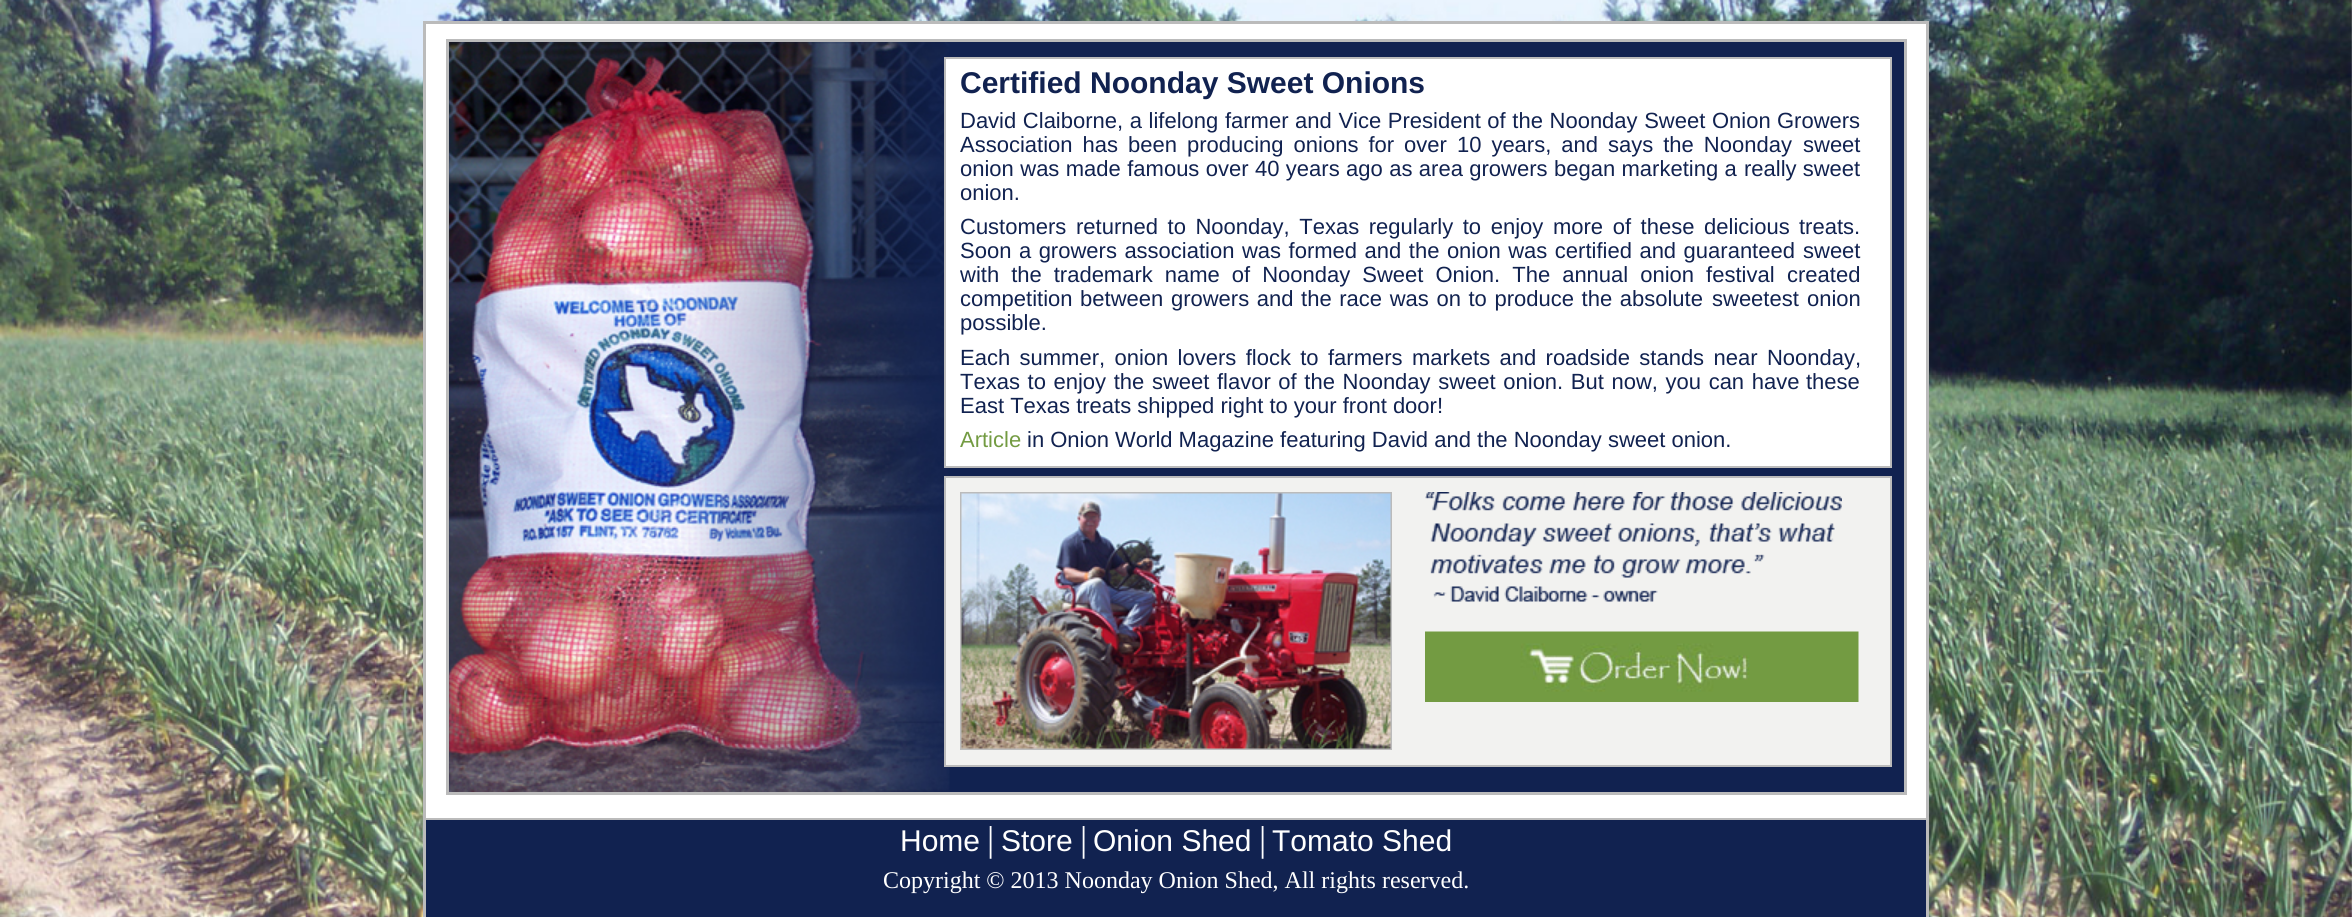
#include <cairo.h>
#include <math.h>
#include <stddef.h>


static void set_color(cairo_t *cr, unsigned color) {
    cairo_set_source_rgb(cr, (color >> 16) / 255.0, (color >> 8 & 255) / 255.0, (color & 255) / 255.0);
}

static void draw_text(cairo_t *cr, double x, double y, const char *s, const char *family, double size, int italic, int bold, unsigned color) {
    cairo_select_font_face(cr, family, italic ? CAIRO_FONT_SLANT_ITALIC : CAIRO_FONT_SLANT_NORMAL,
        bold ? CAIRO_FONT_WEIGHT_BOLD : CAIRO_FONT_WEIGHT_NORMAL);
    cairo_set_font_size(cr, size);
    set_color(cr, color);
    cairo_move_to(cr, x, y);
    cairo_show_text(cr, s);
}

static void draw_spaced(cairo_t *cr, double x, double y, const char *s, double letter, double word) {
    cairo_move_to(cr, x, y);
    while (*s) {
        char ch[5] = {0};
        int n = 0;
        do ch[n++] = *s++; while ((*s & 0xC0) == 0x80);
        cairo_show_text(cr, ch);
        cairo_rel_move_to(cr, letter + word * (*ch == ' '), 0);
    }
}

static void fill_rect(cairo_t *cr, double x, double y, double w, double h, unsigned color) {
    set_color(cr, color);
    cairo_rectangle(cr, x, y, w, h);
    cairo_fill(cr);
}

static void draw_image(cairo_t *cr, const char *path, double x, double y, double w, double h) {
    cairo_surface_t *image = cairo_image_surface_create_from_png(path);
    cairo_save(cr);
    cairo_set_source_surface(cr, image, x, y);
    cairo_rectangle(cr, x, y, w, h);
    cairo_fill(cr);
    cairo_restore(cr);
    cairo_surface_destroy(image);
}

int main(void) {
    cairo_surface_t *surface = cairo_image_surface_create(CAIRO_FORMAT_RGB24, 2352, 917);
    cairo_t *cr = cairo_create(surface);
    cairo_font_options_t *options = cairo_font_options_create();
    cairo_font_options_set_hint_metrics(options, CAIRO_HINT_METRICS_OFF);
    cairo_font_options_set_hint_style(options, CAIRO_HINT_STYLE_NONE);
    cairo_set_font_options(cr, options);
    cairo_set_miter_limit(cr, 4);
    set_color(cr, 0xFFFFFF);
    cairo_paint(cr);
    draw_image(cr, "assets/img1.png", 0, 0, 2352, 917);
    fill_rect(cr, 426, 24, 1500, 794, 0xFFFFFF);
    cairo_rectangle(cr, 424.5, 22.5, 1503, 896);
    set_color(cr, 0xBBBBBB);
    cairo_set_line_width(cr, 3);
    cairo_stroke(cr);
    fill_rect(cr, 950, 42, 954, 750, 0x112250);
    draw_image(cr, "assets/img2.png", 449, 42, 501, 750);
    cairo_rectangle(cr, 447.5, 40.5, 1458, 753);
    set_color(cr, 0xBBBBBB);
    cairo_stroke(cr);
    set_color(cr, 0xFFFFFF);
    cairo_rectangle(cr, 945, 58, 946, 409);
    cairo_fill_preserve(cr);
    set_color(cr, 0xBBBBBB);
    cairo_set_line_width(cr, 2);
    cairo_stroke(cr);
    draw_text(cr, 960, 93, "Certified Noonday Sweet Onions", "Liberation Sans", 30, 0, 1, 0x112250);
    cairo_select_font_face(cr, "Liberation Sans", CAIRO_FONT_SLANT_NORMAL, CAIRO_FONT_WEIGHT_NORMAL);
    cairo_set_font_size(cr, 22);
    draw_spaced(cr, 960, 128, "David Claiborne, a lifelong farmer and Vice President of the Noonday Sweet Onion", 0, 0.5);
    draw_text(cr, 1777, 128, "Growers", "Liberation Sans", 22, 0, 0, 0x112250);
    draw_spaced(cr, 960, 152, "Association has been producing onions for over 10 years, and says the Noonday", 0, 3.9);
    draw_text(cr, 1803, 152, "sweet", "Liberation Sans", 22, 0, 0, 0x112250);
    draw_spaced(cr, 960, 176, "onion was made famous over 40 years ago as area growers began marketing a", 0, 0.3);
    draw_text(cr, 1744, 176, "really sweet", "Liberation Sans", 22, 0, 0, 0x112250);
    draw_text(cr, 960, 200, "onion.", "Liberation Sans", 22, 0, 0, 0x112250);
    draw_spaced(cr, 960, 234, "Customers returned to Noonday, Texas regularly to enjoy more of these delicious", 0, 3.5);
    draw_text(cr, 1799, 234, "treats.", "Liberation Sans", 22, 0, 0, 0x112250);
    draw_spaced(cr, 960, 258, "Soon a growers association was formed and the onion was certified and guaranteed", 0, 1.4);
    draw_text(cr, 1803, 258, "sweet", "Liberation Sans", 22, 0, 0, 0x112250);
    draw_spaced(cr, 960, 282, "with the trademark name of Noonday Sweet Onion. The annual onion festival", 0, 5.9);
    draw_text(cr, 1787, 282, "created", "Liberation Sans", 22, 0, 0, 0x112250);
    draw_spaced(cr, 960, 306, "competition between growers and the race was on to produce the absolute", 0, 1.5);
    draw_spaced(cr, 1712, 306, "sweetest onion", 0, 2);
    draw_text(cr, 960, 330, "possible.", "Liberation Sans", 22, 0, 0, 0x112250);
    draw_spaced(cr, 960, 365, "Each summer, onion lovers flock to farmers markets and roadside stands near Noonday,", 0, 3.25);
    draw_spaced(cr, 960, 389, "Texas to enjoy the sweet flavor of the Noonday sweet onion. But now, you can have", 0, 1.5);
    draw_text(cr, 1806, 389, "these", "Liberation Sans", 22, 0, 0, 0x112250);
    draw_text(cr, 960, 413, "East Texas treats shipped right to your front door!", "Liberation Sans", 22, 0, 0, 0x112250);
    draw_text(cr, 960, 447, "Article", "Liberation Sans", 22, 0, 0, 0x739B42);
    draw_text(cr, 1027, 447, "in Onion World Magazine featuring David and the Noonday sweet onion.", "Liberation Sans", 22, 0, 0, 0x112250);
    set_color(cr, 0xF2F2F0);
    cairo_rectangle(cr, 945, 477, 946, 289);
    cairo_fill_preserve(cr);
    set_color(cr, 0xBBBBBB);
    cairo_stroke(cr);
    cairo_rectangle(cr, 961, 493, 430, 256);
    cairo_stroke(cr);
    draw_image(cr, "assets/img3.png", 961, 493, 430, 256);
    draw_image(cr, "assets/img4.png", 1425, 492, 417, 110);
    draw_image(cr, "assets/img5.png", 1425, 631, 434, 71);
    fill_rect(cr, 426, 820, 1500, 97, 0x112250);
    fill_rect(cr, 426, 818, 1500, 2, 0xBBBBBB);
    draw_text(cr, 900, 851, "Home", "Liberation Sans", 30, 0, 0, 0xFFFFFF);
    draw_text(cr, 987, 851, "|", "Liberation Serif", 36, 0, 0, 0xFFFFFF);
    draw_text(cr, 1001, 851, "Store", "Liberation Sans", 30, 0, 0, 0xFFFFFF);
    draw_text(cr, 1080, 851, "|", "Liberation Serif", 36, 0, 0, 0xFFFFFF);
    draw_text(cr, 1093, 851, "Onion Shed", "Liberation Sans", 30, 0, 0, 0xFFFFFF);
    draw_text(cr, 1259, 851, "|", "Liberation Serif", 36, 0, 0, 0xFFFFFF);
    draw_text(cr, 1272, 851, "Tomato Shed", "Liberation Sans", 30, 0, 0, 0xFFFFFF);
    draw_text(cr, 883, 888, "Copyright © 2013 Noonday Onion Shed, All rights reserved.", "Liberation Serif", 24, 0, 0, 0xFFFFFF);
    cairo_surface_write_to_png(surface, "output.png");
    cairo_font_options_destroy(options);
    cairo_destroy(cr);
    cairo_surface_destroy(surface);
    return 0;
}
